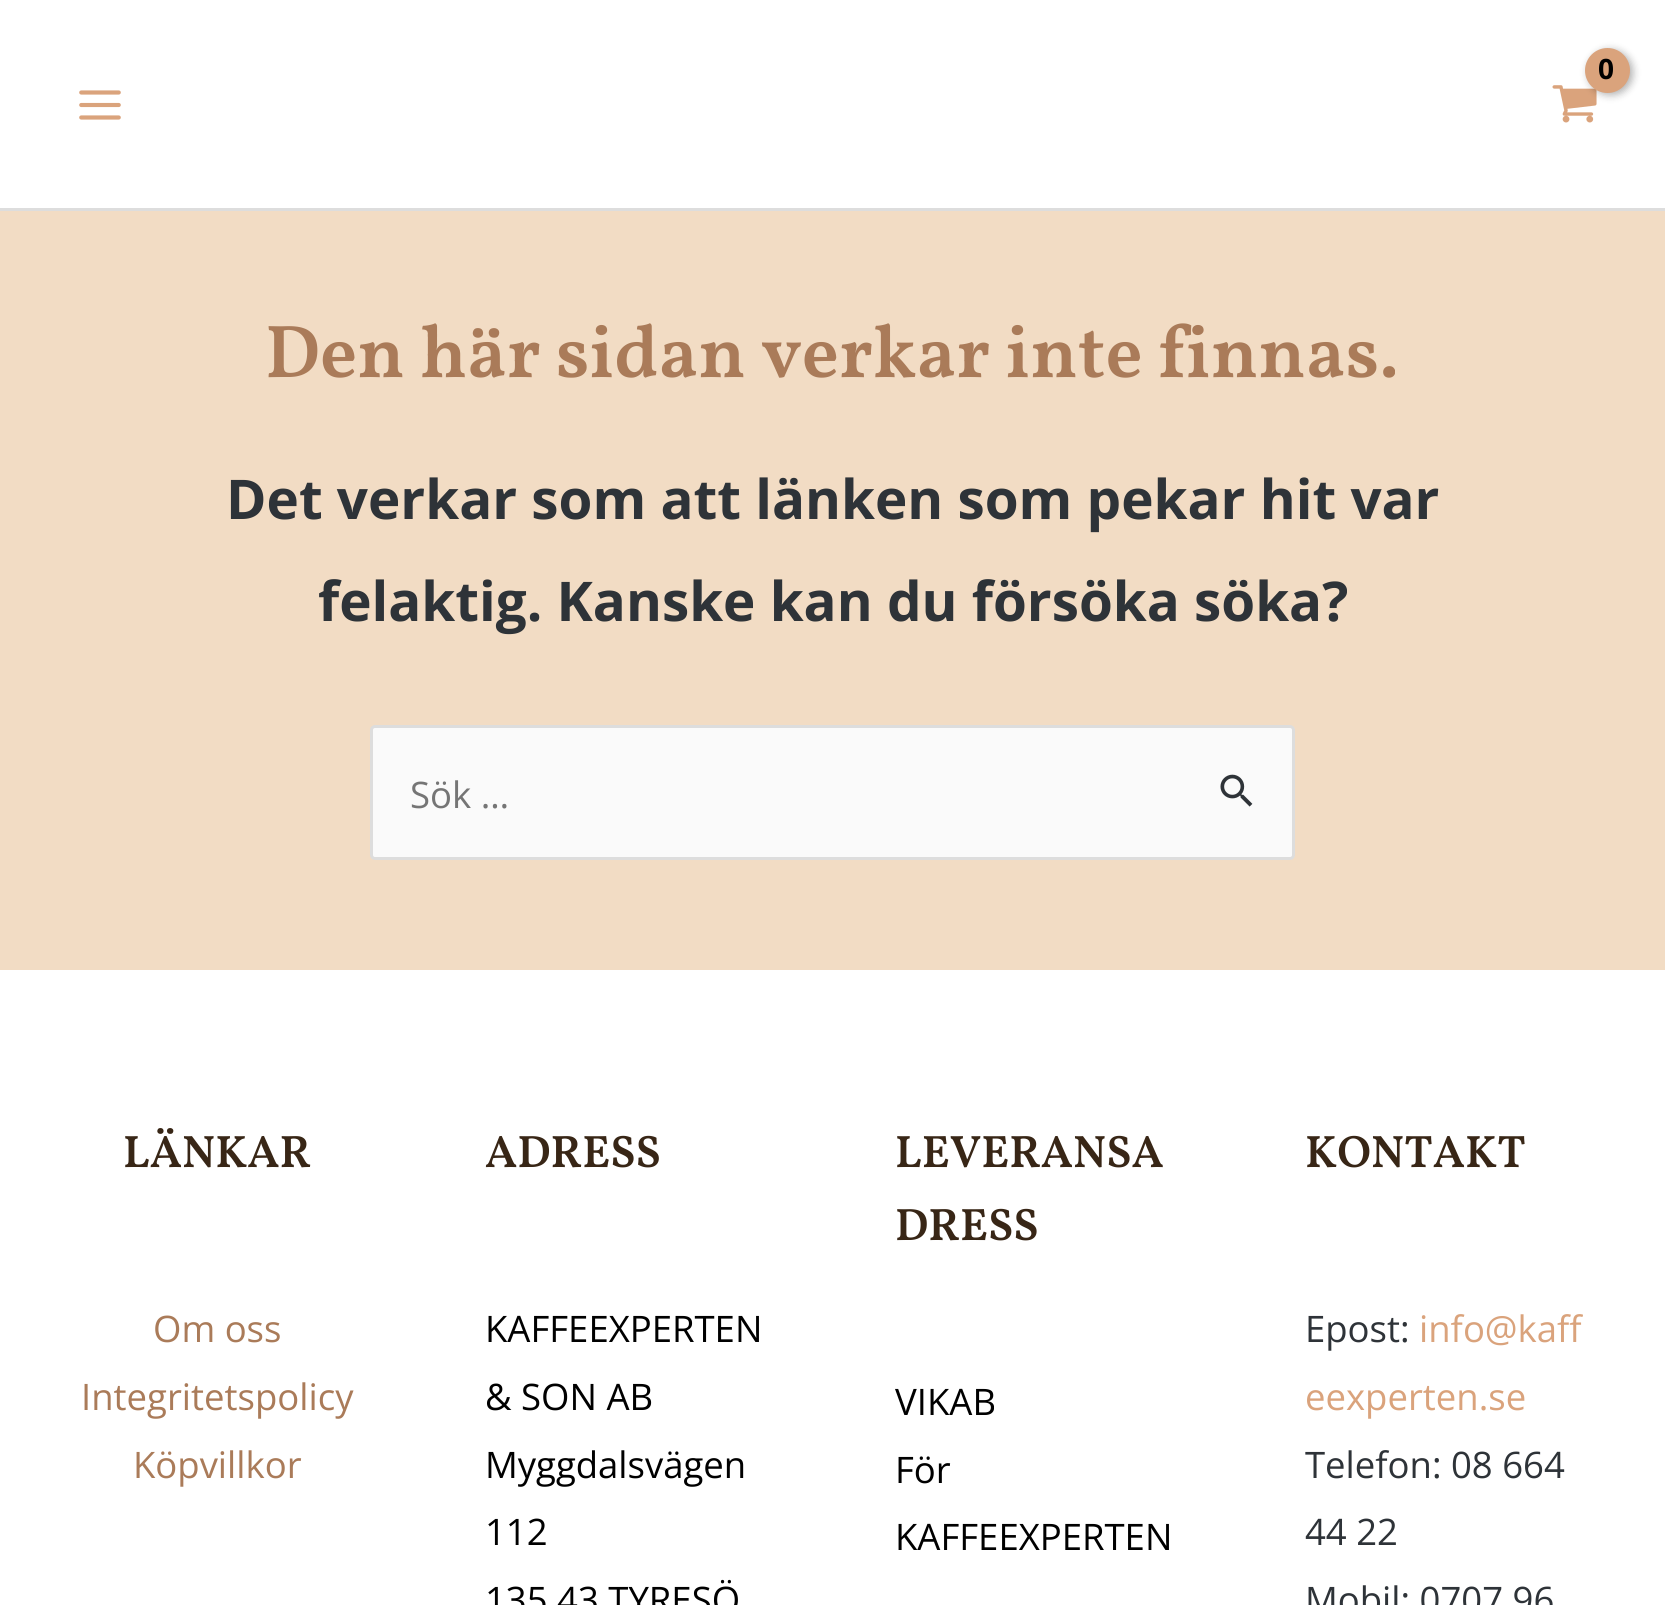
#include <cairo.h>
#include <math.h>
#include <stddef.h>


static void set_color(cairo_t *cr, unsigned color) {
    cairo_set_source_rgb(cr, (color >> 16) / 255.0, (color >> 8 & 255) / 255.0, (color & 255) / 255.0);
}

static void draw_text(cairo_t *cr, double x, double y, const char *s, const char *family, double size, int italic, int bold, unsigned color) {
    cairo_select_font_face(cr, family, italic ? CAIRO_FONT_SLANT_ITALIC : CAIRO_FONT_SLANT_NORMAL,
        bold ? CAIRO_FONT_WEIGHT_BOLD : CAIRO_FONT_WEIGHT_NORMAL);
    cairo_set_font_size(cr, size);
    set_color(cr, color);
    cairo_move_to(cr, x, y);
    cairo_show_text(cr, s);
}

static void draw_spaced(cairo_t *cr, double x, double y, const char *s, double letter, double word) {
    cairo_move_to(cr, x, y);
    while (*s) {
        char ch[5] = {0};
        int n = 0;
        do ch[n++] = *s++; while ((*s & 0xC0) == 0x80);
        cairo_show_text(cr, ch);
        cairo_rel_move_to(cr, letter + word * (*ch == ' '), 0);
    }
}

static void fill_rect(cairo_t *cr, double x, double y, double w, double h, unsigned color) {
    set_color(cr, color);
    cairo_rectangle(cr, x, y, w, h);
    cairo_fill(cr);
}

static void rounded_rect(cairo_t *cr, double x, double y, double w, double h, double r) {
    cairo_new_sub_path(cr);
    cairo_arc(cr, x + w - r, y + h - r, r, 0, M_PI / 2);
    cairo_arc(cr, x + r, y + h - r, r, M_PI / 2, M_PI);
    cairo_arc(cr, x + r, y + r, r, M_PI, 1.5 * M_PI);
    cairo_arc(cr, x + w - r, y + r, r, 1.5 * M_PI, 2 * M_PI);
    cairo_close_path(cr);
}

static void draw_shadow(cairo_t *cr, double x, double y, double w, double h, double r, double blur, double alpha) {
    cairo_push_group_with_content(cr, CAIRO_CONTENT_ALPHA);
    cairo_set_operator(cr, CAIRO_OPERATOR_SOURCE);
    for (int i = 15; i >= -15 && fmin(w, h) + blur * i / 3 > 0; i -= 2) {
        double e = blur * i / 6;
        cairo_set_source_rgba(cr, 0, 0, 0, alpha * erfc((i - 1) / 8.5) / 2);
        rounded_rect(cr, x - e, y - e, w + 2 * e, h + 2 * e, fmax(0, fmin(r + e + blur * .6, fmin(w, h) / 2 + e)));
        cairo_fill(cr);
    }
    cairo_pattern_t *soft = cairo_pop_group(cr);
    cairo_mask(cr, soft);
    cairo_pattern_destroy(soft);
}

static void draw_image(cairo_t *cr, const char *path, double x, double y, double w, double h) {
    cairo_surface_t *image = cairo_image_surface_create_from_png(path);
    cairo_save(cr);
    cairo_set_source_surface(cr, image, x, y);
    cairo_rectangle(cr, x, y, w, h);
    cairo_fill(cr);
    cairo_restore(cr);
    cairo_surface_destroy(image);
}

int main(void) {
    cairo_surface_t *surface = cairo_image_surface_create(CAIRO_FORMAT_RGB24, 1665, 1605);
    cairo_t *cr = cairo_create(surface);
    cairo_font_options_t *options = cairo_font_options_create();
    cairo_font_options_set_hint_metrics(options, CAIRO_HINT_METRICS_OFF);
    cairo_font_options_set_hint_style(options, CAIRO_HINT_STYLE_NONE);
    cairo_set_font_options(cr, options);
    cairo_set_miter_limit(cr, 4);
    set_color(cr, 0xF2DCC4);
    cairo_paint(cr);
    fill_rect(cr, 0, 0, 1665, 208, 0xFFFFFF);
    fill_rect(cr, 0, 208, 1665, 3, 0xDDDDDD);
    draw_image(cr, "assets/img1.png", 1552, 85, 45, 38);
    set_color(cr, 0x000000);
    draw_shadow(cr, 1588, 50, 45, 45, 22.5, 4, 0.3);
    set_color(cr, 0xDAA37C);
    cairo_arc(cr, 1607.5, 70.5, 22.5, 0, 2 * M_PI);
    cairo_fill(cr);
    cairo_select_font_face(cr, "Open Sans", CAIRO_FONT_SLANT_NORMAL, CAIRO_FONT_WEIGHT_BOLD);
    cairo_set_font_size(cr, 28);
    set_color(cr, 0x000000);
    draw_spaced(cr, 1598, 79, "0", -1, 0);
    draw_image(cr, "assets/img2.png", 79, 90, 42, 30);
    draw_text(cr, 265, 377, "Den här sidan verkar inte finnas.", "Vollkorn SemiBold", 75, 0, 0, 0xAA7B59);
    draw_text(cr, 226, 519, "Det verkar som att länken som pekar hit var", "Open Sans", 54.75, 0, 1, 0x2E3338);
    draw_text(cr, 318, 621, "felaktig. Kanske kan du försöka söka?", "Open Sans", 54.75, 0, 1, 0x2E3338);
    set_color(cr, 0xFAFAFA);
    rounded_rect(cr, 371.5, 726.5, 922, 132, 3.5);
    cairo_fill_preserve(cr);
    set_color(cr, 0xDDDDDD);
    cairo_set_line_width(cr, 3);
    cairo_stroke(cr);
    draw_text(cr, 410, 808, "Sök …", "Open Sans", 36.5, 0, 0, 0x757575);
    draw_image(cr, "assets/img3.png", 1220, 774, 33, 33);
    fill_rect(cr, 0, 970, 1665, 635, 0xFFFFFF);
    draw_text(cr, 123, 1167, "LÄNKAR", "Vollkorn SemiBold", 45.5, 0, 0, 0x382616);
    draw_text(cr, 153, 1342, "Om oss", "Open Sans", 36.5, 0, 0, 0xAA7B59);
    draw_text(cr, 81, 1410, "Integritetspolicy", "Open Sans", 36.5, 0, 0, 0xAA7B59);
    draw_text(cr, 133, 1478, "Köpvillkor", "Open Sans", 36.5, 0, 0, 0xAA7B59);
    draw_text(cr, 485, 1167, "ADRESS", "Vollkorn SemiBold", 45.5, 0, 0, 0x382616);
    draw_text(cr, 485, 1342, "KAFFEEXPERTEN", "Open Sans", 36.5, 0, 0, 0x000000);
    draw_text(cr, 485, 1410, "& SON AB", "Open Sans", 36.5, 0, 0, 0x000000);
    draw_text(cr, 485, 1478, "Myggdalsvägen", "Open Sans", 36.5, 0, 0, 0x000000);
    draw_text(cr, 485, 1545, "112", "Open Sans", 36.5, 0, 0, 0x000000);
    draw_text(cr, 485, 1613, "135 43 TYRESÖ", "Open Sans", 36.5, 0, 0, 0x000000);
    draw_text(cr, 895, 1167, "LEVERANSA", "Vollkorn SemiBold", 45.5, 0, 0, 0x382616);
    draw_text(cr, 895, 1240, "DRESS", "Vollkorn SemiBold", 45.5, 0, 0, 0x382616);
    draw_text(cr, 895, 1415, "VIKAB", "Open Sans", 36.5, 0, 0, 0x000000);
    draw_text(cr, 895, 1483, "För", "Open Sans", 36.5, 0, 0, 0x000000);
    draw_text(cr, 895, 1550, "KAFFEEXPERTEN", "Open Sans", 36.5, 0, 0, 0x000000);
    draw_text(cr, 1305, 1167, "KONTAKT", "Vollkorn SemiBold", 45.5, 0, 0, 0x382616);
    draw_text(cr, 1305, 1342, "Epost:", "Open Sans", 36.5, 0, 0, 0x2E3338);
    draw_text(cr, 1419, 1342, "info@kaff", "Open Sans", 36.5, 0, 0, 0xDAA37C);
    draw_text(cr, 1305, 1410, "eexperten.se", "Open Sans", 36.5, 0, 0, 0xDAA37C);
    draw_text(cr, 1305, 1478, "Telefon: 08 664", "Open Sans", 36.5, 0, 0, 0x2E3338);
    draw_text(cr, 1305, 1545, "44 22", "Open Sans", 36.5, 0, 0, 0x2E3338);
    draw_text(cr, 1305, 1613, "Mobil: 0707 96", "Open Sans", 36.5, 0, 0, 0x2E3338);
    cairo_surface_write_to_png(surface, "output.png");
    cairo_font_options_destroy(options);
    cairo_destroy(cr);
    cairo_surface_destroy(surface);
    return 0;
}
